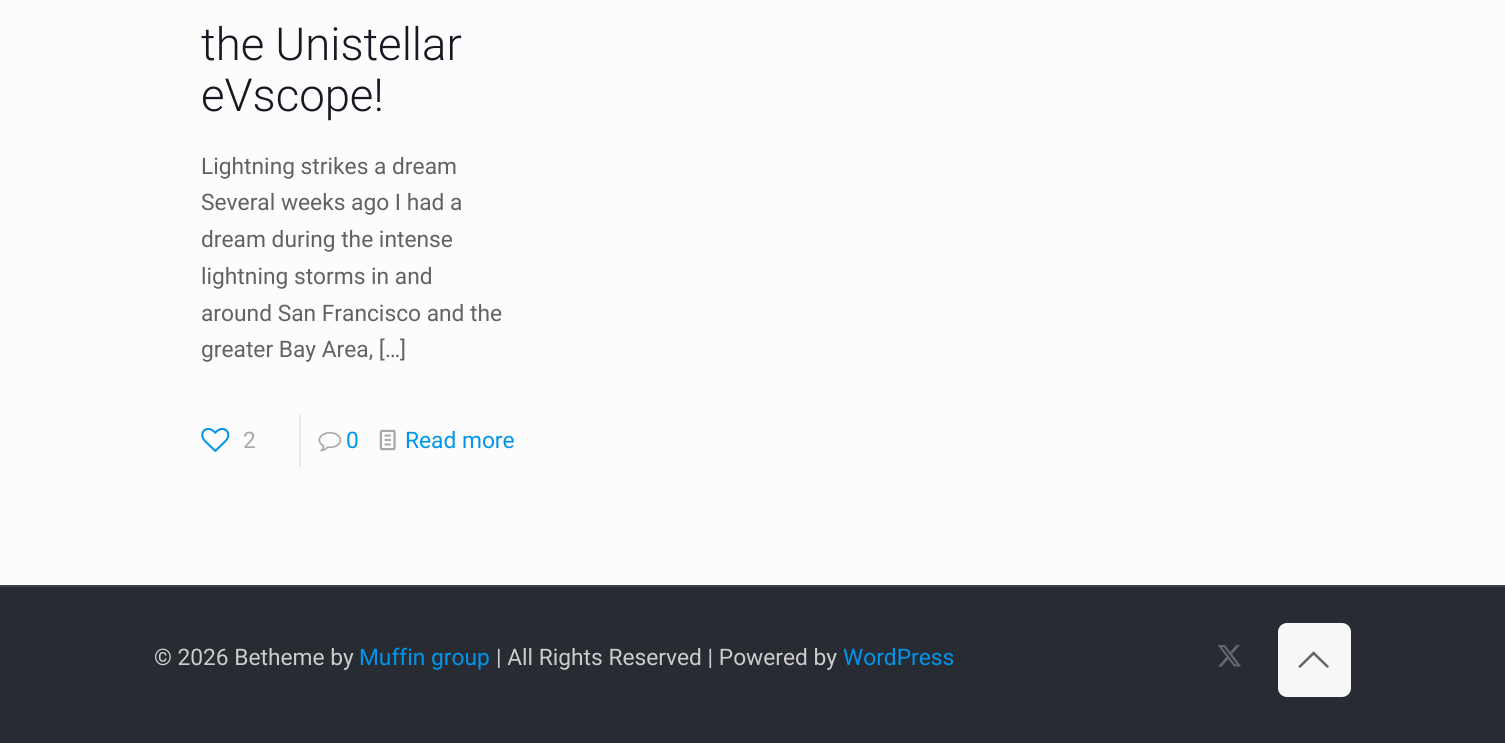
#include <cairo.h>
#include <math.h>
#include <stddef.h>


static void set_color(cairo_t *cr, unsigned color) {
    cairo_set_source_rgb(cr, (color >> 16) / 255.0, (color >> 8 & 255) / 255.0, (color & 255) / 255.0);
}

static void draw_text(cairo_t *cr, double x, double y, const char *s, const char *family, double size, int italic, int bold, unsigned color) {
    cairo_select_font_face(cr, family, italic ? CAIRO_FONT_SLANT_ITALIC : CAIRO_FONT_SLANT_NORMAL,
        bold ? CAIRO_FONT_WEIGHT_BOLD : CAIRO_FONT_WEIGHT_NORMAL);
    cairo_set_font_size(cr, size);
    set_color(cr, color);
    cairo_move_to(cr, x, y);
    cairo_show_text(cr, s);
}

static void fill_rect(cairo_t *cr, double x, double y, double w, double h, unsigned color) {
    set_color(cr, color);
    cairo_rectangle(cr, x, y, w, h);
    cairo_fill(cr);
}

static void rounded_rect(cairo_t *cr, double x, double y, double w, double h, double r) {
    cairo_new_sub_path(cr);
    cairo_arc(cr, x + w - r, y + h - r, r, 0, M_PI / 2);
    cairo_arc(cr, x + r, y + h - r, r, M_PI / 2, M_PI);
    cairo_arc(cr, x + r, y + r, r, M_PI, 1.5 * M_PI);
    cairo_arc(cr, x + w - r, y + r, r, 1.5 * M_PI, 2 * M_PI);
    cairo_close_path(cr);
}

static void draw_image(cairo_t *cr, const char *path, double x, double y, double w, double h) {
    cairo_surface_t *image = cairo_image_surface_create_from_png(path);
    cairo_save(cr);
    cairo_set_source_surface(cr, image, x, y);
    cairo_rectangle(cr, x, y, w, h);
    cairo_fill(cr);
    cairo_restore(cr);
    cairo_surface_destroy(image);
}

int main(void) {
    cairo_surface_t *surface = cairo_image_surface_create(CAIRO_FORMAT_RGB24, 1505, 743);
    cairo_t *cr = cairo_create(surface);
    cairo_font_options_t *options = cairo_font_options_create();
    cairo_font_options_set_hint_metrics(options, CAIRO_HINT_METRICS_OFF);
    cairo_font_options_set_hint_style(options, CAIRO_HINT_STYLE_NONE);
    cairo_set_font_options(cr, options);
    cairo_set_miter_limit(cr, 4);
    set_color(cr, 0xFCFCFC);
    cairo_paint(cr);
    draw_text(cr, 201, 60, "the Unistellar", "Roboto Light", 45.5, 0, 0, 0x161922);
    draw_text(cr, 201, 111, "eVscope!", "Roboto Light", 45.5, 0, 0, 0x161922);
    draw_text(cr, 201, 174, "Lightning strikes a dream", "Roboto", 22.75, 0, 0, 0x626262);
    draw_text(cr, 201, 210, "Several weeks ago I had a", "Roboto", 22.75, 0, 0, 0x626262);
    draw_text(cr, 201, 247, "dream during the intense", "Roboto", 22.75, 0, 0, 0x626262);
    draw_text(cr, 201, 284, "lightning storms in and", "Roboto", 22.75, 0, 0, 0x626262);
    draw_text(cr, 201, 321, "around San Francisco and the", "Roboto", 22.75, 0, 0, 0x626262);
    draw_text(cr, 201, 357, "greater Bay Area, […]", "Roboto", 22.75, 0, 0, 0x626262);
    draw_image(cr, "assets/img1.png", 201, 427, 29, 25);
    draw_text(cr, 243, 448, "2", "Roboto", 22.75, 0, 0, 0xA8A8A8);
    fill_rect(cr, 299, 415, 2, 52, 0xE8E8E8);
    draw_image(cr, "assets/img2.png", 318, 432, 24, 20);
    draw_text(cr, 346, 448, "0", "Roboto", 22.75, 0, 0, 0x0095EB);
    draw_image(cr, "assets/img3.png", 379, 429, 17, 22);
    draw_text(cr, 405, 448, "Read more", "Roboto", 22.75, 0, 0, 0x0095EB);
    fill_rect(cr, 0, 587, 1505, 156, 0x292B33);
    fill_rect(cr, 0, 585, 1505, 2, 0x3E4047);
    draw_text(cr, 154, 665, "© 2026 Betheme by", "Roboto", 22.75, 0, 0, 0xCCCCCC);
    draw_text(cr, 359, 665, "Muffin group", "Roboto", 22.75, 0, 0, 0x0095EB);
    draw_text(cr, 496, 665, "| All Rights Reserved | Powered by", "Roboto", 22.75, 0, 0, 0xCCCCCC);
    draw_text(cr, 843, 665, "WordPress", "Roboto", 22.75, 0, 0, 0x0095EB);
    draw_image(cr, "assets/img4.png", 1217, 645, 24, 22);
    set_color(cr, 0xF7F7F7);
    rounded_rect(cr, 1278, 623, 73, 74, 9);
    cairo_fill(cr);
    draw_image(cr, "assets/img5.png", 1298, 651, 31, 17);
    cairo_surface_write_to_png(surface, "output.png");
    cairo_font_options_destroy(options);
    cairo_destroy(cr);
    cairo_surface_destroy(surface);
    return 0;
}
